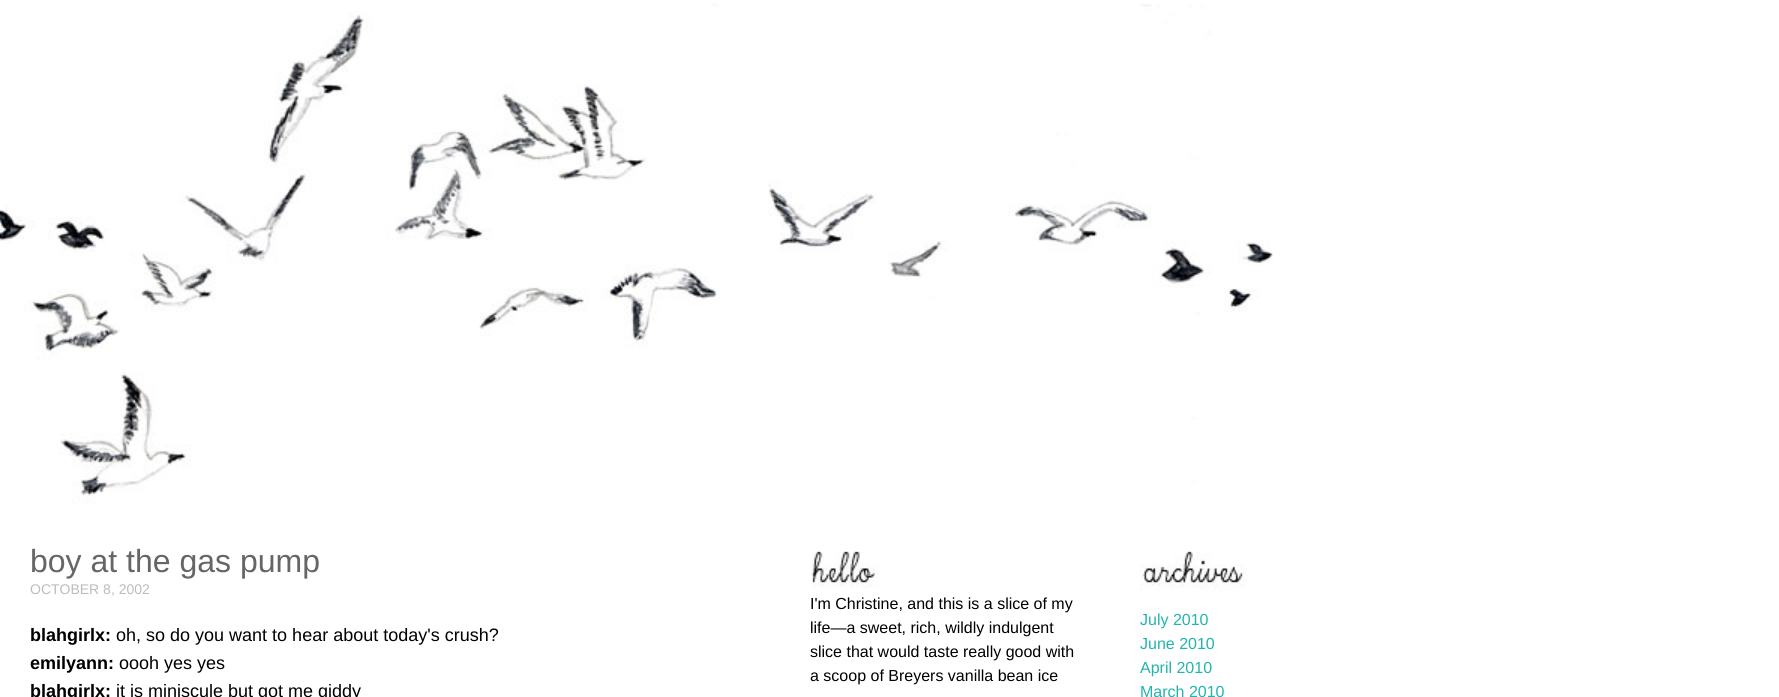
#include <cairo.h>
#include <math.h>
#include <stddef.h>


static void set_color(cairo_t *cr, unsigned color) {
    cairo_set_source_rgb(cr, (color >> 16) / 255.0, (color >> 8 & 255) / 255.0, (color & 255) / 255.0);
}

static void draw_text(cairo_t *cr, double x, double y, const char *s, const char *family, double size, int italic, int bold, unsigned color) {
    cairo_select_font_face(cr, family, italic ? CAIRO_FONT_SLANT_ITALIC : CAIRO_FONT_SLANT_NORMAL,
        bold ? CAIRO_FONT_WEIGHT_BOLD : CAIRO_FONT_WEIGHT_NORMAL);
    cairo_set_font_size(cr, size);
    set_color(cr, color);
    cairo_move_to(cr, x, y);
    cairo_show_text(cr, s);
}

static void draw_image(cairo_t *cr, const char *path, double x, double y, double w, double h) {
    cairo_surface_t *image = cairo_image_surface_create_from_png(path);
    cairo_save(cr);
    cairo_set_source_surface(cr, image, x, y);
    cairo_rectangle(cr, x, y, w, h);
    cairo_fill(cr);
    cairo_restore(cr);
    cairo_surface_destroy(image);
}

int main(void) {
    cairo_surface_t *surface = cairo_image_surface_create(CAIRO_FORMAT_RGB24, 1779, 697);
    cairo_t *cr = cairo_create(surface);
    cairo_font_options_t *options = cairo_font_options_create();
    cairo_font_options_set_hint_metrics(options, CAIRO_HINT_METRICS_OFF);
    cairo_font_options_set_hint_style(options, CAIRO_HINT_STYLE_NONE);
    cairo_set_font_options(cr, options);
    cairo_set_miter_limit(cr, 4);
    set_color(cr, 0xFFFFFF);
    cairo_paint(cr);
    draw_image(cr, "assets/img1.png", 0, 3, 1273, 501);
    draw_text(cr, 30, 572, "boy at the gas pump", "Liberation Sans", 32, 0, 0, 0x666666);
    draw_text(cr, 30, 594, "OCTOBER 8, 2002", "Liberation Sans", 14, 0, 0, 0xBCBCBC);
    draw_text(cr, 30, 641, "blahgirlx:", "Liberation Sans", 18, 0, 1, 0x000000);
    draw_text(cr, 116, 641, "oh, so do you want to hear about today's crush?", "Liberation Sans", 18, 0, 0, 0x000000);
    draw_text(cr, 30, 669, "emilyann:", "Liberation Sans", 18, 0, 1, 0x000000);
    draw_text(cr, 119, 669, "oooh yes yes", "Liberation Sans", 18, 0, 0, 0x000000);
    draw_text(cr, 30, 697, "blahgirlx:", "Liberation Sans", 18, 0, 1, 0x000000);
    draw_text(cr, 116, 697, "it is miniscule but got me giddy", "Liberation Sans", 18, 0, 0, 0x000000);
    draw_image(cr, "assets/img2.png", 811, 551, 70, 37);
    draw_text(cr, 810, 609, "I'm Christine, and this is a slice of my", "Liberation Sans", 16, 0, 0, 0x000000);
    draw_text(cr, 810, 633, "life—a sweet, rich, wildly indulgent", "Liberation Sans", 16, 0, 0, 0x000000);
    draw_text(cr, 810, 657, "slice that would taste really good with", "Liberation Sans", 16, 0, 0, 0x000000);
    draw_text(cr, 810, 681, "a scoop of Breyers vanilla bean ice", "Liberation Sans", 16, 0, 0, 0x000000);
    draw_image(cr, "assets/img3.png", 1140, 551, 107, 40);
    draw_text(cr, 1140, 625, "July 2010", "Liberation Sans", 16, 0, 0, 0x23B4AD);
    draw_text(cr, 1140, 649, "June 2010", "Liberation Sans", 16, 0, 0, 0x23B4AD);
    draw_text(cr, 1140, 673, "April 2010", "Liberation Sans", 16, 0, 0, 0x23B4AD);
    draw_text(cr, 1140, 697, "March 2010", "Liberation Sans", 16, 0, 0, 0x23B4AD);
    cairo_surface_write_to_png(surface, "output.png");
    cairo_font_options_destroy(options);
    cairo_destroy(cr);
    cairo_surface_destroy(surface);
    return 0;
}
